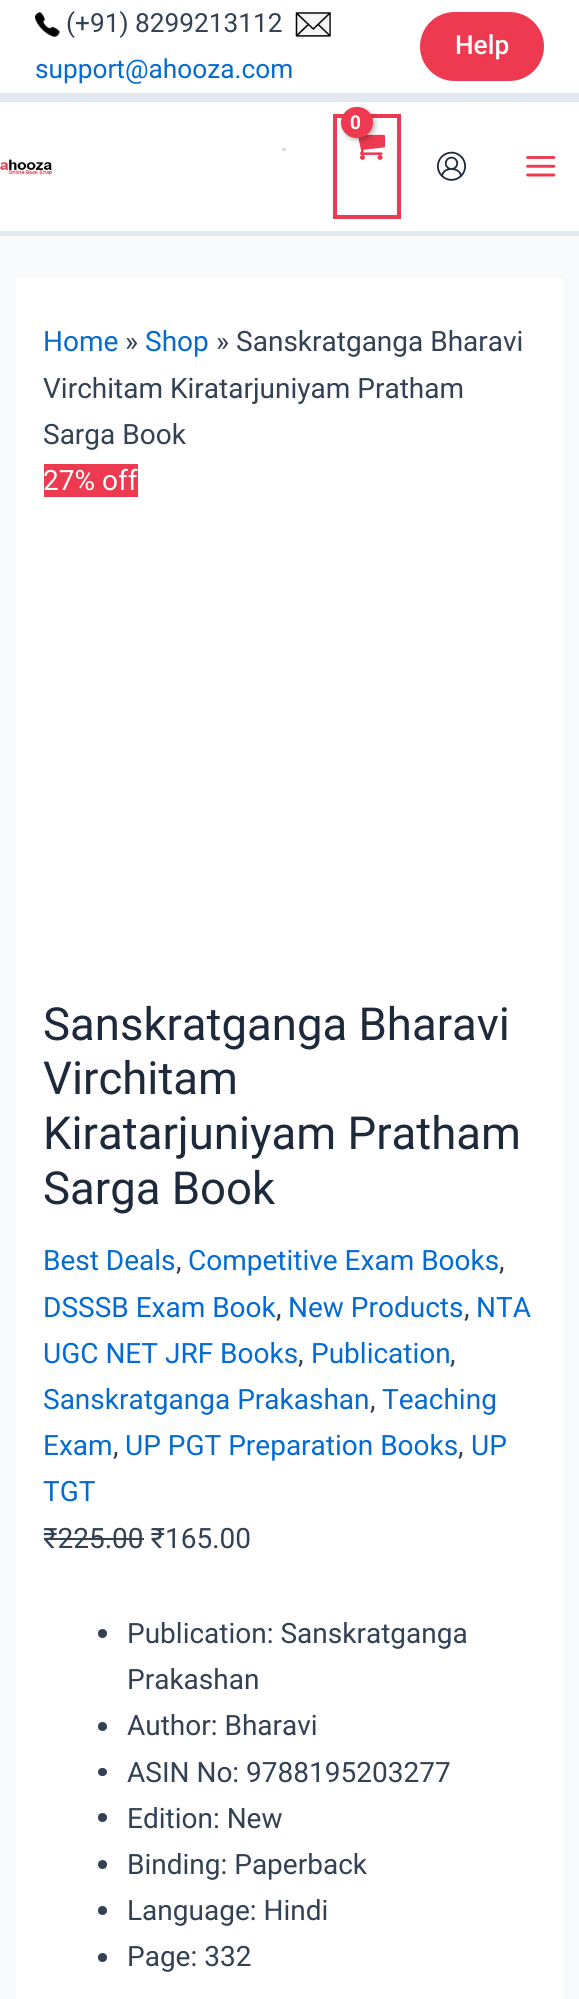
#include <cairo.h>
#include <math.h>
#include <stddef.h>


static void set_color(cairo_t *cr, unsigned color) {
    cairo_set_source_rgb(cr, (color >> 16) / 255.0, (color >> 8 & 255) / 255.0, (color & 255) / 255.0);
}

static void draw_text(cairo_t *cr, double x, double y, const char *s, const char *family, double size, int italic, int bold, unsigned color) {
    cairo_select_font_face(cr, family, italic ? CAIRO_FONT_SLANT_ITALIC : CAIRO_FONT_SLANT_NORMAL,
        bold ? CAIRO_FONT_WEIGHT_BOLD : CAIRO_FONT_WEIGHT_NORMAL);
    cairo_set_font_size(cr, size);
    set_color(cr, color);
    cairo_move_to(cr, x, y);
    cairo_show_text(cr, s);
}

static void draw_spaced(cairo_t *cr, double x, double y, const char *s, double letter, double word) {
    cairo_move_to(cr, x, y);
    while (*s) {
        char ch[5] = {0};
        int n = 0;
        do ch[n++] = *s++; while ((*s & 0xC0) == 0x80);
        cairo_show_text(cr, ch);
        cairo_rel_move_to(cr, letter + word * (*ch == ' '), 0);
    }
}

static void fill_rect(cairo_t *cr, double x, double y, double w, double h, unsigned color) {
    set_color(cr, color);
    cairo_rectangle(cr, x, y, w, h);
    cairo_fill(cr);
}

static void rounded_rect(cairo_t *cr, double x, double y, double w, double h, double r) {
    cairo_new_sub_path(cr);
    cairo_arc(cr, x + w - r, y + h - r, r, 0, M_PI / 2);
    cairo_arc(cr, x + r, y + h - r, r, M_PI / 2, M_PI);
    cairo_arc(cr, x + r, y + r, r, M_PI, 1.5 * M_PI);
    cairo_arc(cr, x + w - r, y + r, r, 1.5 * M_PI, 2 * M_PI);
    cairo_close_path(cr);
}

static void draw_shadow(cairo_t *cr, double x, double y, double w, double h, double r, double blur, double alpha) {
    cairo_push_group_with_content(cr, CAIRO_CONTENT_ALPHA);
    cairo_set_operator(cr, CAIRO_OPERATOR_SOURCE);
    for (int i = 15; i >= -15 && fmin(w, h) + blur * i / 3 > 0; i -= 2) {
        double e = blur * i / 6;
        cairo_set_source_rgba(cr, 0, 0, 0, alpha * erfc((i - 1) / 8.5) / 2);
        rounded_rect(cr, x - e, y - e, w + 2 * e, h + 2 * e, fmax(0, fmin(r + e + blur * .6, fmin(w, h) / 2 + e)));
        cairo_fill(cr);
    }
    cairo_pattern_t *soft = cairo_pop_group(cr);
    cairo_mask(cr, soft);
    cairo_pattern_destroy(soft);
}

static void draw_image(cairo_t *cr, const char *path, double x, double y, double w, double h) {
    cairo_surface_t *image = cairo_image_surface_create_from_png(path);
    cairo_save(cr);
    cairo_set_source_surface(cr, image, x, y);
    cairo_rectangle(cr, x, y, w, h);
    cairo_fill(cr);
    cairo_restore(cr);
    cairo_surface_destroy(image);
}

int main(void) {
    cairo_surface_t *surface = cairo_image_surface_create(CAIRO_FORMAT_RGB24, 579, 1999);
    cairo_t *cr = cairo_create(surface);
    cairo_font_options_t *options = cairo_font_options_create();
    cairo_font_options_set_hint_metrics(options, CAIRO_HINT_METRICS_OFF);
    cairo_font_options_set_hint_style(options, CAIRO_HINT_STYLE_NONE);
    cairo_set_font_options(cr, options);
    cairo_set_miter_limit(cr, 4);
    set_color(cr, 0xF9FAFB);
    cairo_paint(cr);
    fill_rect(cr, 0, 0, 579, 93, 0xFFFFFF);
    fill_rect(cr, 0, 93, 579, 9, 0xE2E8F0);
    draw_image(cr, "assets/img1.png", 35, 12, 25, 25);
    draw_text(cr, 66, 32, "(+91) 8299213112", "Roboto", 26.25, 0, 0, 0x334155);
    draw_image(cr, "assets/img2.png", 295, 12, 36, 25);
    draw_text(cr, 35, 78, "support@ahooza.com", "Roboto", 26.25, 0, 0, 0x046BD2);
    set_color(cr, 0xED3A50);
    rounded_rect(cr, 420, 12, 124, 69, 34.5);
    cairo_fill(cr);
    draw_text(cr, 455, 54, "Help", "Roboto Medium", 26.25, 0, 0, 0xFFFFFF);
    fill_rect(cr, 0, 102, 579, 129, 0xFFFFFF);
    fill_rect(cr, 0, 231, 579, 5, 0xE2E8F0);
    cairo_rectangle(cr, 335, 116, 64, 101);
    set_color(cr, 0xED3A50);
    cairo_set_line_width(cr, 4);
    cairo_stroke(cr);
    draw_image(cr, "assets/img3.png", 358, 134, 28, 26);
    set_color(cr, 0x000000);
    draw_shadow(cr, 343, 109, 32, 31, 15.5, 2.5, 0.3);
    set_color(cr, 0xED3A50);
    rounded_rect(cr, 341, 107, 32, 31, 15.5);
    cairo_fill(cr);
    cairo_select_font_face(cr, "Roboto", CAIRO_FONT_SLANT_NORMAL, CAIRO_FONT_WEIGHT_BOLD);
    cairo_set_font_size(cr, 19);
    set_color(cr, 0xFFFFFF);
    draw_spaced(cr, 350, 129, "0", -1, 0);
    draw_image(cr, "assets/img4.png", 436, 151, 31, 30);
    draw_image(cr, "assets/img5.png", 526, 156, 30, 21);
    cairo_new_path(cr);
    cairo_move_to(cr, 283.5, 149.5);
    cairo_line_to(cr, 284.5, 149.5);
    set_color(cr, 0xDDDDDD);
    cairo_set_line_width(cr, 3.4);
    cairo_set_line_cap(cr, CAIRO_LINE_CAP_ROUND);
    cairo_stroke(cr);
    draw_image(cr, "assets/img6.png", 0, 159, 53, 16);
    fill_rect(cr, 16, 278, 548, 1721, 0xFFFFFF);
    draw_text(cr, 43, 351, "Home", "Roboto", 28, 0, 0, 0x046BD2);
    draw_text(cr, 125, 351, "»", "Roboto", 28, 0, 0, 0x334155);
    draw_text(cr, 145, 351, "Shop", "Roboto", 28, 0, 0, 0x046BD2);
    draw_text(cr, 216, 351, "» Sanskratganga Bharavi", "Roboto", 28, 0, 0, 0x334155);
    draw_text(cr, 43, 398, "Virchitam Kiratarjuniyam Pratham", "Roboto", 28, 0, 0, 0x334155);
    draw_text(cr, 43, 444, "Sarga Book", "Roboto", 28, 0, 0, 0x334155);
    fill_rect(cr, 44, 464, 94, 33, 0xED3A50);
    draw_text(cr, 43, 490, "27% off", "Roboto", 28, 0, 0, 0xFFFFFF);
    draw_text(cr, 43, 1040, "Sanskratganga Bharavi", "Roboto", 45.5, 0, 0, 0x1E293B);
    draw_text(cr, 43, 1094, "Virchitam", "Roboto", 45.5, 0, 0, 0x1E293B);
    draw_text(cr, 43, 1149, "Kiratarjuniyam Pratham", "Roboto", 45.5, 0, 0, 0x1E293B);
    draw_text(cr, 43, 1204, "Sarga Book", "Roboto", 45.5, 0, 0, 0x1E293B);
    draw_text(cr, 43, 1270, "Best Deals", "Roboto", 28, 0, 0, 0x046BD2);
    draw_text(cr, 176, 1270, ",", "Roboto", 28, 0, 0, 0x334155);
    draw_text(cr, 188, 1270, "Competitive Exam Books", "Roboto", 28, 0, 0, 0x046BD2);
    draw_text(cr, 499, 1270, ",", "Roboto", 28, 0, 0, 0x334155);
    draw_text(cr, 43, 1317, "DSSSB Exam Book", "Roboto", 28, 0, 0, 0x046BD2);
    draw_text(cr, 276, 1317, ",", "Roboto", 28, 0, 0, 0x334155);
    draw_text(cr, 288, 1317, "New Products", "Roboto", 28, 0, 0, 0x046BD2);
    draw_text(cr, 464, 1317, ",", "Roboto", 28, 0, 0, 0x334155);
    draw_text(cr, 476, 1317, "NTA", "Roboto", 28, 0, 0, 0x046BD2);
    draw_text(cr, 43, 1363, "UGC NET JRF Books", "Roboto", 28, 0, 0, 0x046BD2);
    draw_text(cr, 298, 1363, ",", "Roboto", 28, 0, 0, 0x334155);
    draw_text(cr, 311, 1363, "Publication", "Roboto", 28, 0, 0, 0x046BD2);
    draw_text(cr, 450, 1363, ",", "Roboto", 28, 0, 0, 0x334155);
    draw_text(cr, 43, 1409, "Sanskratganga Prakashan", "Roboto", 28, 0, 0, 0x046BD2);
    draw_text(cr, 370, 1409, ",", "Roboto", 28, 0, 0, 0x334155);
    draw_text(cr, 382, 1409, "Teaching", "Roboto", 28, 0, 0, 0x046BD2);
    draw_text(cr, 43, 1455, "Exam", "Roboto", 28, 0, 0, 0x046BD2);
    draw_text(cr, 113, 1455, ",", "Roboto", 28, 0, 0, 0x334155);
    draw_text(cr, 125, 1455, "UP PGT Preparation Books", "Roboto", 28, 0, 0, 0x046BD2);
    draw_text(cr, 458, 1455, ",", "Roboto", 28, 0, 0, 0x334155);
    draw_text(cr, 471, 1455, "UP", "Roboto", 28, 0, 0, 0x046BD2);
    draw_text(cr, 43, 1501, "TGT", "Roboto", 28, 0, 0, 0x046BD2);
    draw_text(cr, 43, 1548, "₹225.00 ₹165.00", "Roboto", 28, 0, 0, 0x334155);
    fill_rect(cr, 44, 1538, 100, 2, 0x334155);
    cairo_new_path(cr);
    cairo_arc(cr, 102.5, 1633.5, 4.5, 0, 2 * M_PI);
    cairo_fill(cr);
    draw_text(cr, 127, 1643, "Publication: Sanskratganga", "Roboto", 28, 0, 0, 0x334155);
    draw_text(cr, 127, 1689, "Prakashan", "Roboto", 28, 0, 0, 0x334155);
    cairo_new_path(cr);
    cairo_arc(cr, 102.5, 1726.5, 4.5, 0, 2 * M_PI);
    cairo_fill(cr);
    draw_text(cr, 127, 1735, "Author: Bharavi", "Roboto", 28, 0, 0, 0x334155);
    rounded_rect(cr, 98, 1768, 9, 8, 4);
    cairo_fill(cr);
    draw_text(cr, 127, 1782, "ASIN No: 9788195203277", "Roboto", 28, 0, 0, 0x334155);
    cairo_new_path(cr);
    cairo_arc(cr, 102.5, 1817.5, 4.5, 0, 2 * M_PI);
    cairo_fill(cr);
    draw_text(cr, 127, 1828, "Edition: New", "Roboto", 28, 0, 0, 0x334155);
    cairo_new_path(cr);
    cairo_arc(cr, 102.5, 1864.5, 4.5, 0, 2 * M_PI);
    cairo_fill(cr);
    draw_text(cr, 127, 1874, "Binding: Paperback", "Roboto", 28, 0, 0, 0x334155);
    cairo_new_path(cr);
    cairo_arc(cr, 102.5, 1910.5, 4.5, 0, 2 * M_PI);
    cairo_fill(cr);
    draw_text(cr, 127, 1920, "Language: Hindi", "Roboto", 28, 0, 0, 0x334155);
    cairo_new_path(cr);
    cairo_arc(cr, 102.5, 1957.5, 4.5, 0, 2 * M_PI);
    cairo_fill(cr);
    draw_text(cr, 127, 1966, "Page: 332", "Roboto", 28, 0, 0, 0x334155);
    cairo_surface_write_to_png(surface, "output.png");
    cairo_font_options_destroy(options);
    cairo_destroy(cr);
    cairo_surface_destroy(surface);
    return 0;
}
